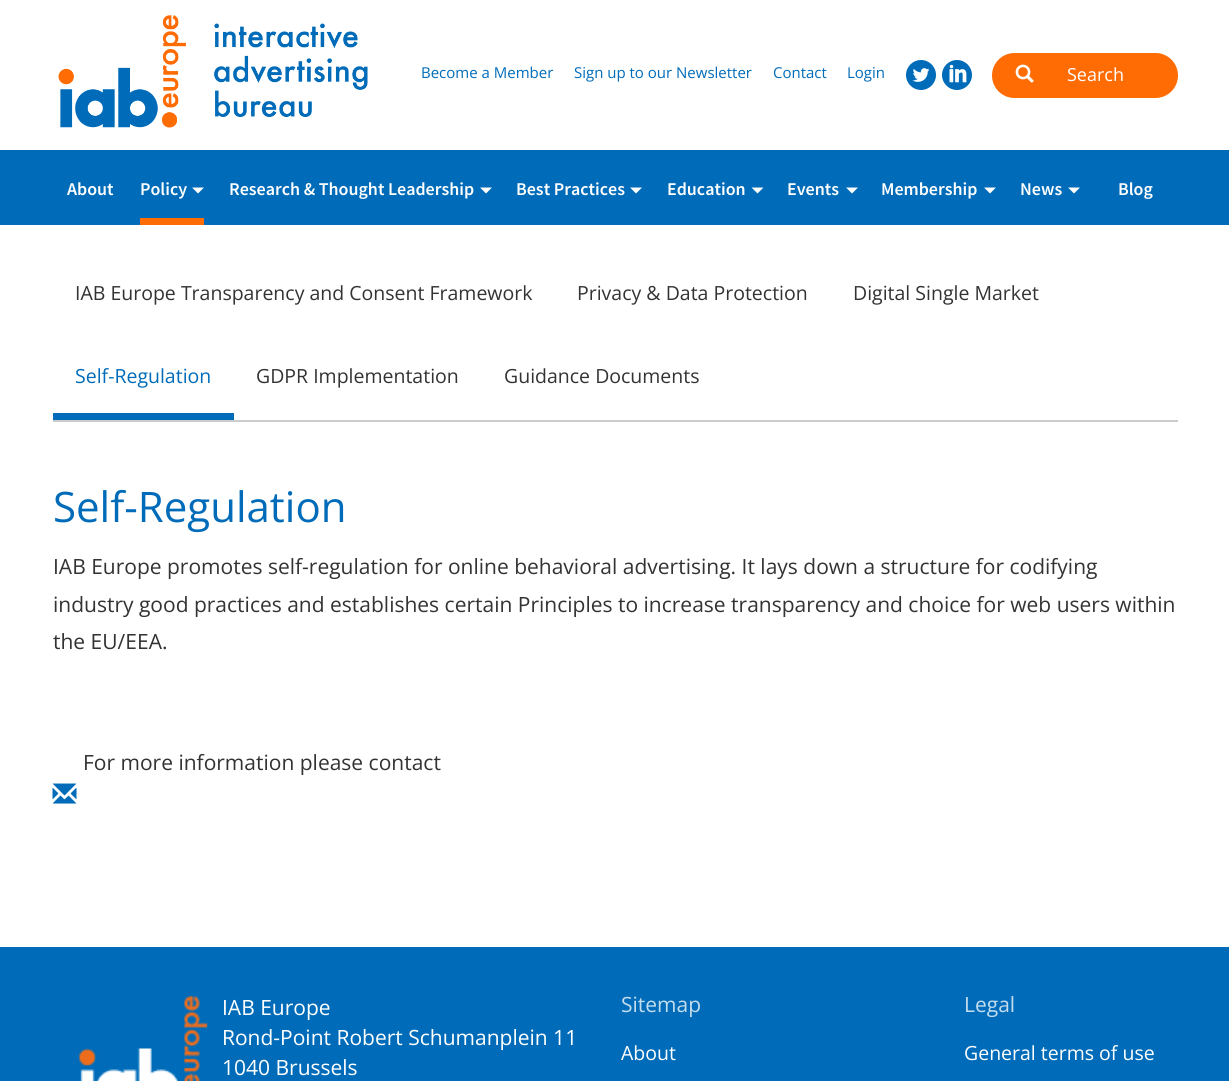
#include <cairo.h>
#include <math.h>
#include <stddef.h>


static void set_color(cairo_t *cr, unsigned color) {
    cairo_set_source_rgb(cr, (color >> 16) / 255.0, (color >> 8 & 255) / 255.0, (color & 255) / 255.0);
}

static void draw_text(cairo_t *cr, double x, double y, const char *s, const char *family, double size, int italic, int bold, unsigned color) {
    cairo_select_font_face(cr, family, italic ? CAIRO_FONT_SLANT_ITALIC : CAIRO_FONT_SLANT_NORMAL,
        bold ? CAIRO_FONT_WEIGHT_BOLD : CAIRO_FONT_WEIGHT_NORMAL);
    cairo_set_font_size(cr, size);
    set_color(cr, color);
    cairo_move_to(cr, x, y);
    cairo_show_text(cr, s);
}

static void fill_rect(cairo_t *cr, double x, double y, double w, double h, unsigned color) {
    set_color(cr, color);
    cairo_rectangle(cr, x, y, w, h);
    cairo_fill(cr);
}

static void rounded_rect(cairo_t *cr, double x, double y, double w, double h, double r) {
    cairo_new_sub_path(cr);
    cairo_arc(cr, x + w - r, y + h - r, r, 0, M_PI / 2);
    cairo_arc(cr, x + r, y + h - r, r, M_PI / 2, M_PI);
    cairo_arc(cr, x + r, y + r, r, M_PI, 1.5 * M_PI);
    cairo_arc(cr, x + w - r, y + r, r, 1.5 * M_PI, 2 * M_PI);
    cairo_close_path(cr);
}

static void draw_image(cairo_t *cr, const char *path, double x, double y, double w, double h) {
    cairo_surface_t *image = cairo_image_surface_create_from_png(path);
    cairo_save(cr);
    cairo_set_source_surface(cr, image, x, y);
    cairo_rectangle(cr, x, y, w, h);
    cairo_fill(cr);
    cairo_restore(cr);
    cairo_surface_destroy(image);
}

int main(void) {
    cairo_surface_t *surface = cairo_image_surface_create(CAIRO_FORMAT_RGB24, 1229, 1081);
    cairo_t *cr = cairo_create(surface);
    cairo_font_options_t *options = cairo_font_options_create();
    cairo_font_options_set_hint_metrics(options, CAIRO_HINT_METRICS_OFF);
    cairo_font_options_set_hint_style(options, CAIRO_HINT_STYLE_NONE);
    cairo_set_font_options(cr, options);
    cairo_set_miter_limit(cr, 4);
    set_color(cr, 0x006CB9);
    cairo_paint(cr);
    fill_rect(cr, 0, 0, 1229, 150, 0xFFFFFF);
    draw_image(cr, "assets/img1.png", 58, 15, 310, 113);
    draw_text(cr, 421, 78, "Become a Member", "Open Sans", 15, 0, 0, 0x006CB9);
    draw_text(cr, 574, 78, "Sign up to our Newsletter", "Open Sans", 15, 0, 0, 0x006CB9);
    draw_text(cr, 773, 78, "Contact", "Open Sans", 15, 0, 0, 0x006CB9);
    draw_text(cr, 847, 78, "Login", "Open Sans", 15, 0, 0, 0x006CB9);
    draw_image(cr, "assets/img2.png", 906, 60, 30, 30);
    draw_image(cr, "assets/img3.png", 942, 60, 30, 30);
    set_color(cr, 0xFF6C04);
    rounded_rect(cr, 992, 53, 186, 45, 22.5);
    cairo_fill(cr);
    draw_image(cr, "assets/img4.png", 1015, 64, 19, 19);
    draw_text(cr, 1067, 81, "Search", "Open Sans", 18, 0, 0, 0xFFFFFF);
    draw_text(cr, 67, 195, "About", "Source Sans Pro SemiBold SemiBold", 18, 0, 0, 0xFFFFFF);
    fill_rect(cr, 140, 218, 64, 7, 0xFF6C04);
    draw_text(cr, 140, 195, "Policy", "Source Sans Pro SemiBold SemiBold", 18, 0, 0, 0xFFFFFF);
    cairo_new_path(cr);
    cairo_move_to(cr, 192, 187.5);
    cairo_line_to(cr, 204, 187.5);
    cairo_line_to(cr, 198, 193.5);
    cairo_close_path(cr);
    cairo_fill(cr);
    draw_text(cr, 229, 195, "Research & Thought Leadership", "Source Sans Pro SemiBold SemiBold", 18, 0, 0, 0xFFFFFF);
    cairo_new_path(cr);
    cairo_move_to(cr, 480, 187.5);
    cairo_line_to(cr, 492, 187.5);
    cairo_line_to(cr, 486, 193.5);
    cairo_close_path(cr);
    cairo_fill(cr);
    draw_text(cr, 516, 195, "Best Practices", "Source Sans Pro SemiBold SemiBold", 18, 0, 0, 0xFFFFFF);
    cairo_new_path(cr);
    cairo_move_to(cr, 630, 187.5);
    cairo_line_to(cr, 642, 187.5);
    cairo_line_to(cr, 636, 193.5);
    cairo_close_path(cr);
    cairo_fill(cr);
    draw_text(cr, 667, 195, "Education", "Source Sans Pro SemiBold SemiBold", 18, 0, 0, 0xFFFFFF);
    cairo_new_path(cr);
    cairo_move_to(cr, 751.5, 187.5);
    cairo_line_to(cr, 763.5, 187.5);
    cairo_line_to(cr, 757.5, 193.5);
    cairo_close_path(cr);
    cairo_fill(cr);
    draw_text(cr, 787, 195, "Events", "Source Sans Pro SemiBold SemiBold", 18, 0, 0, 0xFFFFFF);
    cairo_new_path(cr);
    cairo_move_to(cr, 846, 187.5);
    cairo_line_to(cr, 858, 187.5);
    cairo_line_to(cr, 852, 193.5);
    cairo_close_path(cr);
    cairo_fill(cr);
    draw_text(cr, 881, 195, "Membership", "Source Sans Pro SemiBold SemiBold", 18, 0, 0, 0xFFFFFF);
    cairo_new_path(cr);
    cairo_move_to(cr, 984, 187.5);
    cairo_line_to(cr, 996, 187.5);
    cairo_line_to(cr, 990, 193.5);
    cairo_close_path(cr);
    cairo_fill(cr);
    draw_text(cr, 1020, 195, "News", "Source Sans Pro SemiBold SemiBold", 18, 0, 0, 0xFFFFFF);
    cairo_new_path(cr);
    cairo_move_to(cr, 1068, 187.5);
    cairo_line_to(cr, 1080, 187.5);
    cairo_line_to(cr, 1074, 193.5);
    cairo_close_path(cr);
    cairo_fill(cr);
    draw_text(cr, 1118, 195, "Blog", "Source Sans Pro SemiBold SemiBold", 18, 0, 0, 0xFFFFFF);
    fill_rect(cr, 0, 225, 1229, 722, 0xFFFFFF);
    fill_rect(cr, 53, 420, 1125, 2, 0xCCCCCC);
    draw_text(cr, 75, 300, "IAB Europe Transparency and Consent Framework", "Open Sans", 19.5, 0, 0, 0x333333);
    draw_text(cr, 577, 300, "Privacy & Data Protection", "Open Sans", 19.5, 0, 0, 0x333333);
    draw_text(cr, 853, 300, "Digital Single Market", "Open Sans", 19.5, 0, 0, 0x333333);
    fill_rect(cr, 53, 413, 181, 7, 0x006CB9);
    draw_text(cr, 75, 383, "Self-Regulation", "Open Sans", 19.5, 0, 0, 0x006CB9);
    draw_text(cr, 256, 383, "GDPR Implementation", "Open Sans", 19.5, 0, 0, 0x333333);
    draw_text(cr, 504, 383, "Guidance Documents", "Open Sans", 19.5, 0, 0, 0x333333);
    draw_text(cr, 53, 522, "Self-Regulation", "Open Sans", 42, 0, 0, 0x006CB9);
    draw_text(cr, 53, 574, "IAB Europe promotes self-regulation for online behavioral advertising. It lays down a structure for codifying", "Open Sans", 21, 0, 0, 0x333333);
    draw_text(cr, 53, 612, "industry good practices and establishes certain Principles to increase transparency and choice for web users within", "Open Sans", 21, 0, 0, 0x333333);
    draw_text(cr, 53, 649, "the EU/EEA.", "Open Sans", 21, 0, 0, 0x333333);
    draw_text(cr, 83, 770, "For more information please contact", "Open Sans", 21, 0, 0, 0x333333);
    draw_image(cr, "assets/img5.png", 52, 783, 25, 21);
    draw_image(cr, "assets/img6.png", 79, 996, 129, 85);
    draw_text(cr, 222, 1015, "IAB Europe", "Open Sans", 21, 0, 0, 0xFFFFFF);
    draw_text(cr, 222, 1045, "Rond-Point Robert Schumanplein 11", "Open Sans", 21, 0, 0, 0xFFFFFF);
    draw_text(cr, 222, 1075, "1040 Brussels", "Open Sans", 21, 0, 0, 0xFFFFFF);
    draw_text(cr, 621, 1012, "Sitemap", "Open Sans", 21, 0, 0, 0xC3DDEE);
    draw_text(cr, 621, 1060, "About", "Open Sans", 19.5, 0, 0, 0xFFFFFF);
    draw_text(cr, 964, 1012, "Legal", "Open Sans", 21, 0, 0, 0xC3DDEE);
    draw_text(cr, 964, 1060, "General terms of use", "Open Sans", 19.5, 0, 0, 0xFFFFFF);
    cairo_surface_write_to_png(surface, "output.png");
    cairo_font_options_destroy(options);
    cairo_destroy(cr);
    cairo_surface_destroy(surface);
    return 0;
}
